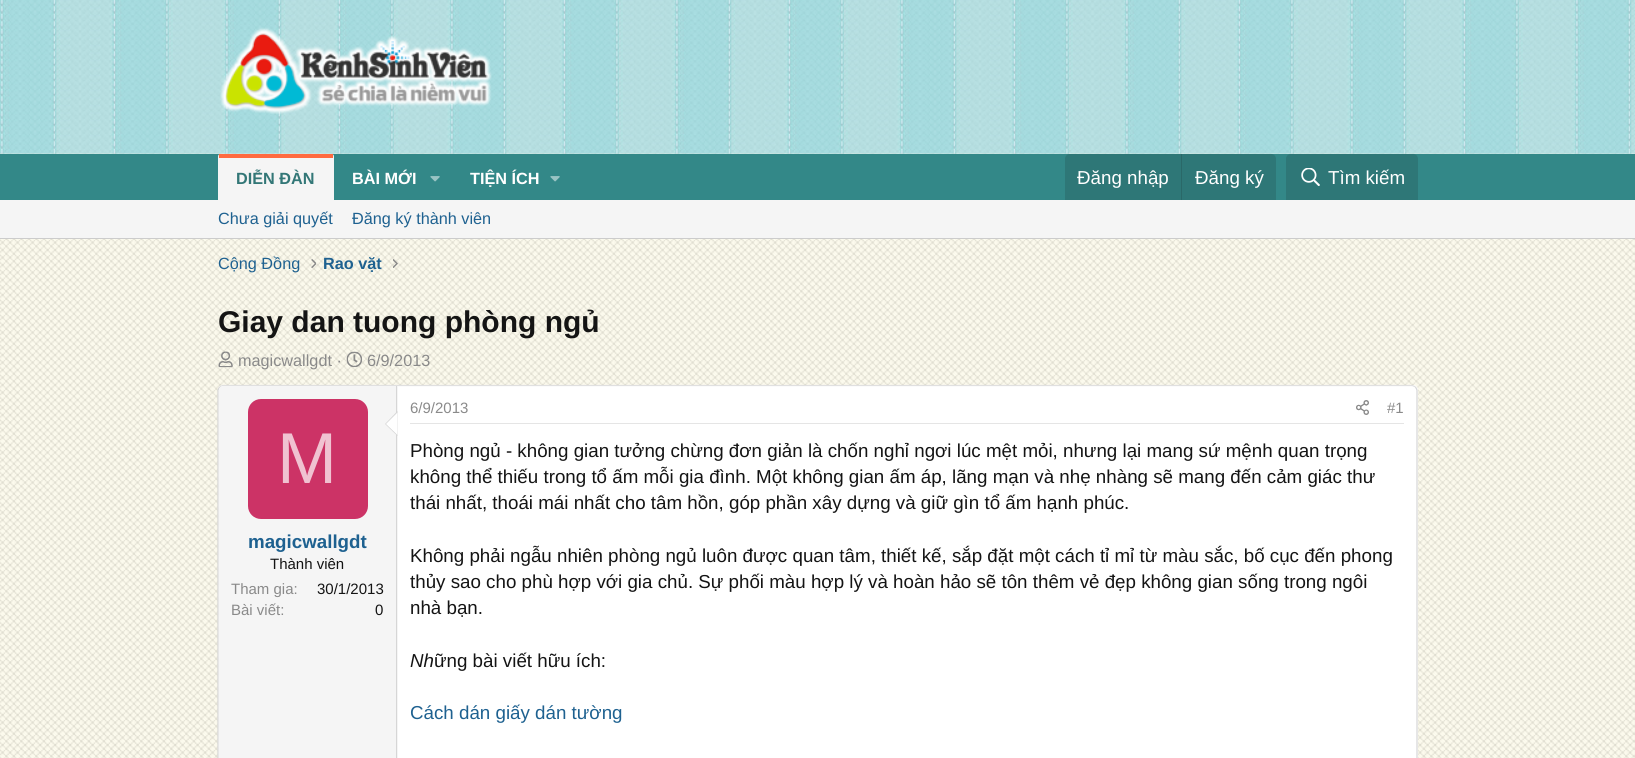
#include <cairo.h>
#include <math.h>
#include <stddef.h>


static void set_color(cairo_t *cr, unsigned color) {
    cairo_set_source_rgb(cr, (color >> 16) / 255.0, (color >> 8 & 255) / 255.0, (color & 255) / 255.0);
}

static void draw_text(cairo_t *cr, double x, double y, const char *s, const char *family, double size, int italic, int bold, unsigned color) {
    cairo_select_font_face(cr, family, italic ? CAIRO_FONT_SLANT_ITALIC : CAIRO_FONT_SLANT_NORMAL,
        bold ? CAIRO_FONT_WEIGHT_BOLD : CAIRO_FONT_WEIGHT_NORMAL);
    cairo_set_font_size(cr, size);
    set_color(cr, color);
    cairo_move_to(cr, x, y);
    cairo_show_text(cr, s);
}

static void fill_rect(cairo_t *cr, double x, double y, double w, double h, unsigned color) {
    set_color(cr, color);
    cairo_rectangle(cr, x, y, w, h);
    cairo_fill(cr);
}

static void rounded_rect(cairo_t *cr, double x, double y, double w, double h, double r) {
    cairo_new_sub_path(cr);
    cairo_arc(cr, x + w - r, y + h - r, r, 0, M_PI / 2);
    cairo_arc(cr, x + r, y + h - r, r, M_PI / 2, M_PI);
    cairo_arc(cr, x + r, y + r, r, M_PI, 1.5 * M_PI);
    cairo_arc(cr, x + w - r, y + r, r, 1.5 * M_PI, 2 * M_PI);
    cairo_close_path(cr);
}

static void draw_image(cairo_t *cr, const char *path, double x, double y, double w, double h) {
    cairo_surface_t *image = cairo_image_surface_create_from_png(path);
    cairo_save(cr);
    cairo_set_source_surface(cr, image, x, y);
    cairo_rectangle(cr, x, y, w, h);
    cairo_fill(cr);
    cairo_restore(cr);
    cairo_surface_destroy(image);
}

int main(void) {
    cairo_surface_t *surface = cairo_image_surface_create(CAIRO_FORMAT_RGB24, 1635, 758);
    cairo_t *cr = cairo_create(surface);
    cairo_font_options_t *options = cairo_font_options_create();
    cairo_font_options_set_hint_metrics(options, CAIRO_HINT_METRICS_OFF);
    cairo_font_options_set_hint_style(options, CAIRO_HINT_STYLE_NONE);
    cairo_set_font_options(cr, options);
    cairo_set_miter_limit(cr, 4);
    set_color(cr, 0xFFFFFF);
    cairo_paint(cr);
    draw_image(cr, "assets/img1.png", 0, 153, 1635, 605);
    draw_image(cr, "assets/img2.png", 0, 0, 1635, 154);
    draw_image(cr, "assets/img3.png", 220, 27, 272, 87);
    fill_rect(cr, 0, 154, 1635, 46, 0x338888);
    set_color(cr, 0xF5F5F5);
    cairo_new_path(cr);
    cairo_move_to(cr, 220.5, 154);
    cairo_line_to(cr, 331.5, 154);
    cairo_curve_to(cr, 333, 154, 334, 155, 334, 156.5);
    cairo_line_to(cr, 334, 200);
    cairo_line_to(cr, 218, 200);
    cairo_line_to(cr, 218, 156.5);
    cairo_curve_to(cr, 218, 155, 219, 154, 220.5, 154);
    cairo_close_path(cr);
    cairo_fill(cr);
    fill_rect(cr, 219, 154, 114, 4, 0xFF6A40);
    draw_text(cr, 236, 184, "DIỄN ĐÀN", "Liberation Sans", 16.25, 0, 1, 0x337777);
    draw_text(cr, 352, 184, "BÀI MỚI", "Liberation Sans", 16.25, 0, 1, 0xFFFFFF);
    draw_image(cr, "assets/img4.png", 430, 176, 10, 6);
    draw_text(cr, 470, 184, "TIỆN ÍCH", "Liberation Sans", 16.25, 0, 1, 0xFFFFFF);
    draw_image(cr, "assets/img4.png", 550, 176, 10, 6);
    set_color(cr, 0x2E7777);
    cairo_new_path(cr);
    cairo_move_to(cr, 1070, 154);
    cairo_line_to(cr, 1271, 154);
    cairo_curve_to(cr, 1274, 154, 1276, 156, 1276, 159);
    cairo_line_to(cr, 1276, 200);
    cairo_line_to(cr, 1065, 200);
    cairo_line_to(cr, 1065, 159);
    cairo_curve_to(cr, 1065, 156, 1067, 154, 1070, 154);
    cairo_close_path(cr);
    cairo_fill(cr);
    draw_text(cr, 1077, 184, "Đăng nhập", "Liberation Sans", 18.75, 0, 0, 0xFFFFFF);
    fill_rect(cr, 1181, 154, 1, 46, 0x2A6868);
    draw_text(cr, 1195, 184, "Đăng ký", "Liberation Sans", 18.75, 0, 0, 0xFFFFFF);
    set_color(cr, 0x2E7777);
    cairo_new_path(cr);
    cairo_move_to(cr, 1291, 154);
    cairo_line_to(cr, 1413, 154);
    cairo_curve_to(cr, 1416, 154, 1418, 156, 1418, 159);
    cairo_line_to(cr, 1418, 200);
    cairo_line_to(cr, 1286, 200);
    cairo_line_to(cr, 1286, 159);
    cairo_curve_to(cr, 1286, 156, 1288, 154, 1291, 154);
    cairo_close_path(cr);
    cairo_fill(cr);
    draw_image(cr, "assets/img5.png", 1301, 168, 19, 18);
    draw_text(cr, 1328, 184, "Tìm kiếm", "Liberation Sans", 18.75, 0, 0, 0xFFFFFF);
    fill_rect(cr, 0, 200, 1635, 38, 0xF5F5F5);
    fill_rect(cr, 0, 238, 1635, 1, 0xCCCCCC);
    draw_text(cr, 218, 224, "Chưa giải quyết", "Liberation Sans", 16.25, 0, 0, 0x1E6190);
    draw_text(cr, 352, 224, "Đăng ký thành viên", "Liberation Sans", 16.25, 0, 0, 0x1E6190);
    draw_text(cr, 218, 269, "Cộng Đồng", "Liberation Sans", 16.25, 0, 0, 0x1E6190);
    draw_image(cr, "assets/img6.png", 311, 259, 5, 9);
    draw_text(cr, 323, 269, "Rao vặt", "Liberation Sans", 16.25, 0, 1, 0x1E6190);
    draw_image(cr, "assets/img7.png", 393, 259, 5, 9);
    draw_text(cr, 218, 332, "Giay dan tuong phòng ngủ", "Liberation Sans", 30, 0, 1, 0x141414);
    draw_image(cr, "assets/img8.png", 218, 351, 15, 17);
    draw_text(cr, 238, 366, "magicwallgdt ·", "Liberation Sans", 16.25, 0, 0, 0x8A8A8A);
    draw_image(cr, "assets/img9.png", 346, 351, 17, 17);
    draw_text(cr, 367, 366, "6/9/2013", "Liberation Sans", 16.25, 0, 0, 0x8A8A8A);
    set_color(cr, 0xFFFFFF);
    rounded_rect(cr, 218, 385, 1200, 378, 5);
    cairo_fill(cr);
    cairo_new_path(cr);
    cairo_move_to(cr, 219.5, 387);
    cairo_line_to(cr, 222.5, 385.5);
    cairo_line_to(cr, 1412.5, 385.5);
    cairo_line_to(cr, 1415.5, 387);
    set_color(cr, 0xE0E0E0);
    cairo_set_line_width(cr, 1.2);
    cairo_stroke(cr);
    cairo_new_path(cr);
    cairo_move_to(cr, 1415.5, 387);
    cairo_line_to(cr, 1417, 390);
    cairo_line_to(cr, 1417, 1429);
    cairo_line_to(cr, 1415.5, 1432);
    set_color(cr, 0xD6D6D6);
    cairo_stroke(cr);
    cairo_new_path(cr);
    cairo_move_to(cr, 219.5, 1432);
    cairo_line_to(cr, 218, 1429);
    cairo_line_to(cr, 218, 390);
    cairo_line_to(cr, 219.5, 387);
    cairo_stroke(cr);
    set_color(cr, 0xF5F5F5);
    cairo_new_path(cr);
    cairo_move_to(cr, 223, 386);
    cairo_line_to(cr, 398, 386);
    cairo_line_to(cr, 398, 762);
    cairo_line_to(cr, 223, 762);
    cairo_curve_to(cr, 221, 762, 219, 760, 219, 758);
    cairo_line_to(cr, 219, 390);
    cairo_curve_to(cr, 219, 388, 221, 386, 223, 386);
    cairo_close_path(cr);
    cairo_fill(cr);
    fill_rect(cr, 396, 386, 1, 372, 0xD6D6D6);
    cairo_new_path(cr);
    cairo_move_to(cr, 397.5, 411);
    cairo_line_to(cr, 397.5, 436);
    cairo_line_to(cr, 385, 424);
    cairo_close_path(cr);
    cairo_fill(cr);
    set_color(cr, 0xFFFFFF);
    cairo_new_path(cr);
    cairo_move_to(cr, 397.5, 412.5);
    cairo_line_to(cr, 397.5, 435);
    cairo_line_to(cr, 386, 424);
    cairo_close_path(cr);
    cairo_fill(cr);
    set_color(cr, 0xCC3366);
    rounded_rect(cr, 248, 399, 120, 120, 13);
    cairo_fill(cr);
    draw_text(cr, 277, 483, "M", "Liberation Sans", 72, 0, 0, 0xF0C2D1);
    draw_text(cr, 248, 548, "magicwallgdt", "Liberation Sans", 18.75, 0, 1, 0x1E6190);
    draw_text(cr, 270, 569, "Thành viên", "Liberation Sans", 15, 0, 0, 0x141414);
    draw_text(cr, 231, 594, "Tham gia:", "Liberation Sans", 15, 0, 0, 0x8A8A8A);
    draw_text(cr, 317, 594, "30/1/2013", "Liberation Sans", 15, 0, 0, 0x141414);
    draw_text(cr, 231, 615, "Bài viết:", "Liberation Sans", 15, 0, 0, 0x8A8A8A);
    draw_text(cr, 375, 615, "0", "Liberation Sans", 15, 0, 0, 0x141414);
    fill_rect(cr, 410, 423, 994, 1, 0xE5E5E5);
    draw_text(cr, 410, 413, "6/9/2013", "Liberation Sans", 15, 0, 0, 0x8A8A8A);
    draw_image(cr, "assets/img10.png", 1356, 400, 13, 15);
    draw_text(cr, 1387, 413, "#1", "Liberation Sans", 15, 0, 0, 0x8A8A8A);
    draw_text(cr, 410, 457, "Phòng ngủ - không gian tưởng chừng đơn giản là chốn nghỉ ngơi lúc mệt mỏi, nhưng lại mang sứ mệnh quan trọng", "Liberation Sans", 18.75, 0, 0, 0x141414);
    draw_text(cr, 410, 483, "không thể thiếu trong tổ ấm mỗi gia đình. Một không gian ấm áp, lãng mạn và nhẹ nhàng sẽ mang đến cảm giác thư", "Liberation Sans", 18.75, 0, 0, 0x141414);
    draw_text(cr, 410, 509, "thái nhất, thoái mái nhất cho tâm hồn, góp phần xây dựng và giữ gìn tổ ấm hạnh phúc.", "Liberation Sans", 18.75, 0, 0, 0x141414);
    draw_text(cr, 410, 562, "Không phải ngẫu nhiên phòng ngủ luôn được quan tâm, thiết kế, sắp đặt một cách tỉ mỉ từ màu sắc, bố cục đến phong", "Liberation Sans", 18.75, 0, 0, 0x141414);
    draw_text(cr, 410, 588, "thủy sao cho phù hợp với gia chủ. Sự phối màu hợp lý và hoàn hảo sẽ tôn thêm vẻ đẹp không gian sống trong ngôi", "Liberation Sans", 18.75, 0, 0, 0x141414);
    draw_text(cr, 410, 614, "nhà bạn.", "Liberation Sans", 18.75, 0, 0, 0x141414);
    draw_text(cr, 410, 667, "Nh", "Liberation Sans", 18.75, 1, 0, 0x141414);
    draw_text(cr, 434, 667, "ững bài viết hữu ích:", "Liberation Sans", 18.75, 0, 0, 0x141414);
    draw_text(cr, 410, 719, "Cách dán giấy dán tường", "Liberation Sans", 18.75, 0, 0, 0x1E6190);
    cairo_surface_write_to_png(surface, "output.png");
    cairo_font_options_destroy(options);
    cairo_destroy(cr);
    cairo_surface_destroy(surface);
    return 0;
}
